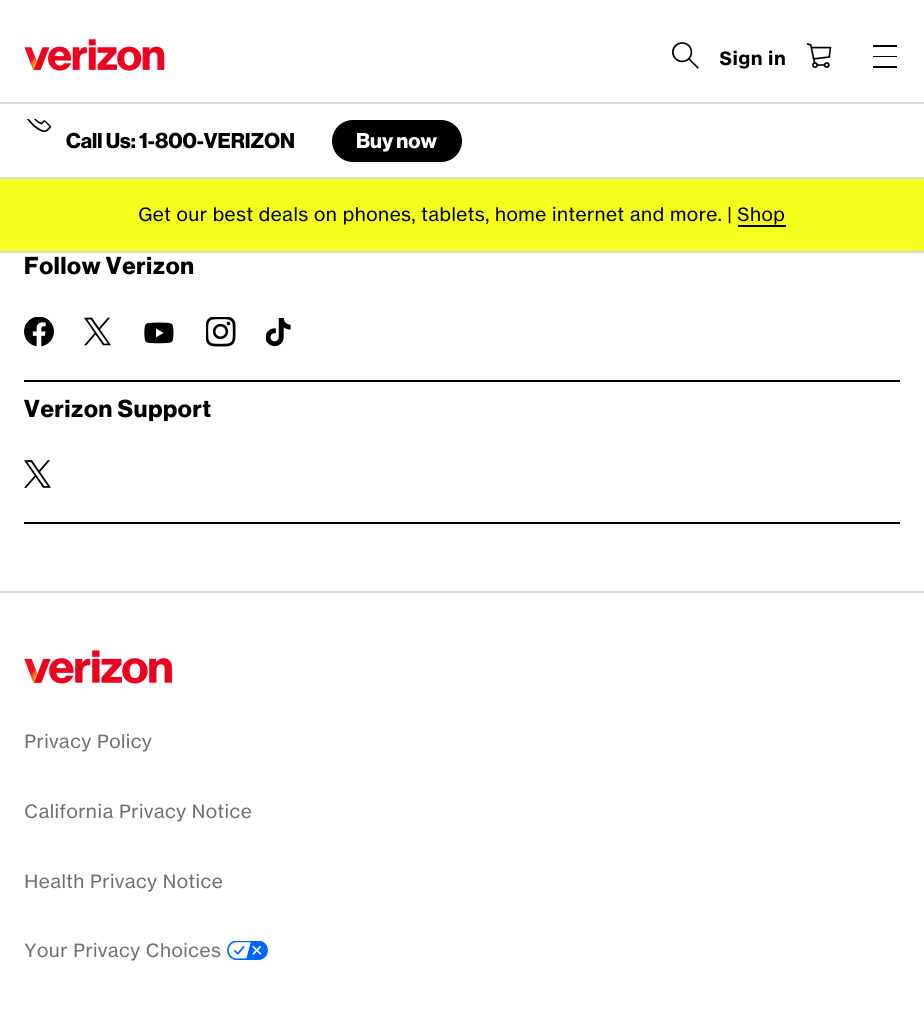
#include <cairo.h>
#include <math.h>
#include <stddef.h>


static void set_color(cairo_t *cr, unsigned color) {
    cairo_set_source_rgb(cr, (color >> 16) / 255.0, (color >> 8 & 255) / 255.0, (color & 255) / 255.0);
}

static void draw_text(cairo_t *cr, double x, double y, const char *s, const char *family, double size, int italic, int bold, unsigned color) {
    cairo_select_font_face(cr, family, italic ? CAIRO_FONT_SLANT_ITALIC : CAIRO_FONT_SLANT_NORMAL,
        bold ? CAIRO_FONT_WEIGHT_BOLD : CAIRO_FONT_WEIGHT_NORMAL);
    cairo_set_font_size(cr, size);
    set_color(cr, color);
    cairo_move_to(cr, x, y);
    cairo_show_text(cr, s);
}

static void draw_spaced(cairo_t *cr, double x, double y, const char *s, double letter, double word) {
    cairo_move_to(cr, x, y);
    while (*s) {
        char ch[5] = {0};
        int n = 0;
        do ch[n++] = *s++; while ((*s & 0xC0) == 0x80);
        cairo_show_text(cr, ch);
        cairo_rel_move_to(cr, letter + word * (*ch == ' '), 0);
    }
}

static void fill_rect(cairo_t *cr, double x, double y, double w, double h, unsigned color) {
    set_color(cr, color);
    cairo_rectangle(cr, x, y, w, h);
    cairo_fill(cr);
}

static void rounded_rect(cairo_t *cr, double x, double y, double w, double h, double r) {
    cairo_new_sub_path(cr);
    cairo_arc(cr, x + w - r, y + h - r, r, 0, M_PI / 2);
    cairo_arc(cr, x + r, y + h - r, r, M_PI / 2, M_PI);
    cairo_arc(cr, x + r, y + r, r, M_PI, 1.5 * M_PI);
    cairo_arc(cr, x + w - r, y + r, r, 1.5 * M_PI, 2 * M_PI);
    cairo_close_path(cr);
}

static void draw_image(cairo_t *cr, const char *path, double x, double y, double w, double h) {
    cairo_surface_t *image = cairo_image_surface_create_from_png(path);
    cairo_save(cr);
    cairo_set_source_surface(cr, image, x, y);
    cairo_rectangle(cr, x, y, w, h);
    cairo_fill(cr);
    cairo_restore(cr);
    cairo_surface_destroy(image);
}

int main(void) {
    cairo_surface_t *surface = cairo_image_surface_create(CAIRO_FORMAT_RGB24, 924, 1009);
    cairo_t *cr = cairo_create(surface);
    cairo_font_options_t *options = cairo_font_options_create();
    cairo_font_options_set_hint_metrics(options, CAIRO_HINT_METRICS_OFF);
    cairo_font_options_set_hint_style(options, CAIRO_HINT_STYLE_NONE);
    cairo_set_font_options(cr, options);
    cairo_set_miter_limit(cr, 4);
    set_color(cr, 0xFFFFFF);
    cairo_paint(cr);
    fill_rect(cr, 0, 251, 924, 2, 0xD8DADA);
    draw_image(cr, "assets/img1.png", 24, 39, 141, 32);
    draw_image(cr, "assets/img2.png", 672, 42, 27, 27);
    draw_text(cr, 719, 65, "Sign in", "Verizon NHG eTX", 18, 0, 1, 0x000000);
    draw_image(cr, "assets/img3.png", 806, 43, 26, 25);
    fill_rect(cr, 873, 45, 24, 2, 0x000000);
    fill_rect(cr, 873, 66, 24, 2, 0x000000);
    fill_rect(cr, 873, 56, 24, 1, 0x000000);
    fill_rect(cr, 0, 102, 924, 2, 0xD8DADA);
    draw_image(cr, "assets/img4.png", 27, 119, 24, 13);
    draw_text(cr, 66, 148, "Call Us: 1-800-VERIZON", "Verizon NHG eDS", 21, 0, 1, 0x000000);
    rounded_rect(cr, 333, 121, 128, 40, 20);
    cairo_fill_preserve(cr);
    cairo_stroke(cr);
    draw_text(cr, 356, 148, "Buy now", "Verizon NHG eDS", 21, 0, 1, 0xFFFFFF);
    fill_rect(cr, 0, 179, 924, 72, 0xF5FF1E);
    fill_rect(cr, 0, 177, 924, 2, 0xD8DADA);
    draw_text(cr, 138, 221, "Get our best deals on phones, tablets, home internet and more. | Shop", "Verizon NHG eTX", 18, 0, 0, 0x000000);
    fill_rect(cr, 738, 225, 48, 2, 0x000000);
    cairo_select_font_face(cr, "Verizon NHG eDS", CAIRO_FONT_SLANT_NORMAL, CAIRO_FONT_WEIGHT_BOLD);
    cairo_set_font_size(cr, 24);
    draw_spaced(cr, 24, 274, "Follow Verizon", 0.75, 0);
    draw_image(cr, "assets/img5.png", 24, 317, 30, 30);
    draw_image(cr, "assets/img6.png", 84, 317, 27, 29);
    draw_image(cr, "assets/img7.png", 144, 322, 30, 22);
    draw_image(cr, "assets/img8.png", 206, 317, 30, 30);
    draw_image(cr, "assets/img9.png", 266, 318, 25, 29);
    fill_rect(cr, 24, 522, 876, 2, 0x000000);
    fill_rect(cr, 24, 380, 876, 2, 0x000000);
    draw_spaced(cr, 24, 417, "Verizon Support", 0.75, 0);
    draw_image(cr, "assets/img10.png", 24, 460, 27, 28);
    fill_rect(cr, 0, 591, 924, 2, 0xD8DADA);
    draw_image(cr, "assets/img11.png", 24, 650, 148, 34);
    draw_text(cr, 24, 748, "Privacy Policy", "Verizon NHG eTX", 18, 0, 0, 0x6F7171);
    draw_text(cr, 24, 818, "California Privacy Notice", "Verizon NHG eTX", 18, 0, 0, 0x6F7171);
    draw_text(cr, 24, 888, "Health Privacy Notice", "Verizon NHG eTX", 18, 0, 0, 0x6F7171);
    draw_text(cr, 24, 957, "Your Privacy Choices", "Verizon NHG eTX", 18, 0, 0, 0x6F7171);
    draw_image(cr, "assets/img12.png", 227, 941, 41, 19);
    cairo_surface_write_to_png(surface, "output.png");
    cairo_font_options_destroy(options);
    cairo_destroy(cr);
    cairo_surface_destroy(surface);
    return 0;
}
